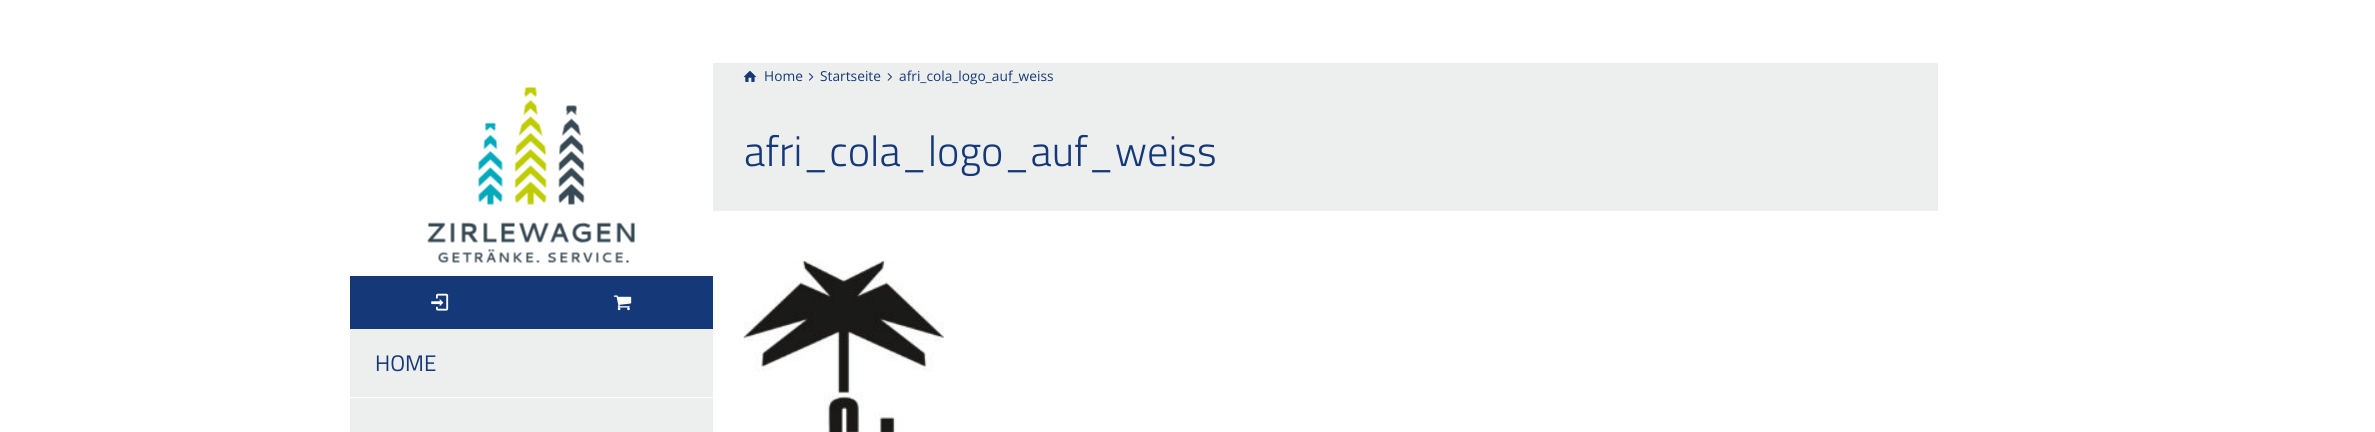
#include <cairo.h>
#include <math.h>
#include <stddef.h>


static void set_color(cairo_t *cr, unsigned color) {
    cairo_set_source_rgb(cr, (color >> 16) / 255.0, (color >> 8 & 255) / 255.0, (color & 255) / 255.0);
}

static void draw_text(cairo_t *cr, double x, double y, const char *s, const char *family, double size, int italic, int bold, unsigned color) {
    cairo_select_font_face(cr, family, italic ? CAIRO_FONT_SLANT_ITALIC : CAIRO_FONT_SLANT_NORMAL,
        bold ? CAIRO_FONT_WEIGHT_BOLD : CAIRO_FONT_WEIGHT_NORMAL);
    cairo_set_font_size(cr, size);
    set_color(cr, color);
    cairo_move_to(cr, x, y);
    cairo_show_text(cr, s);
}

static void fill_rect(cairo_t *cr, double x, double y, double w, double h, unsigned color) {
    set_color(cr, color);
    cairo_rectangle(cr, x, y, w, h);
    cairo_fill(cr);
}

static void draw_image(cairo_t *cr, const char *path, double x, double y, double w, double h) {
    cairo_surface_t *image = cairo_image_surface_create_from_png(path);
    cairo_save(cr);
    cairo_set_source_surface(cr, image, x, y);
    cairo_rectangle(cr, x, y, w, h);
    cairo_fill(cr);
    cairo_restore(cr);
    cairo_surface_destroy(image);
}

int main(void) {
    cairo_surface_t *surface = cairo_image_surface_create(CAIRO_FORMAT_RGB24, 2375, 432);
    cairo_t *cr = cairo_create(surface);
    cairo_font_options_t *options = cairo_font_options_create();
    cairo_font_options_set_hint_metrics(options, CAIRO_HINT_METRICS_OFF);
    cairo_font_options_set_hint_style(options, CAIRO_HINT_STYLE_NONE);
    cairo_set_font_options(cr, options);
    cairo_set_miter_limit(cr, 4);
    set_color(cr, 0xFFFFFF);
    cairo_paint(cr);
    fill_rect(cr, 713, 63, 1225, 148, 0xEDEFEF);
    draw_image(cr, "assets/img1.png", 743, 70, 13, 12);
    draw_text(cr, 764, 81, "Home", "Open Sans", 13.75, 0, 0, 0x153878);
    draw_image(cr, "assets/img2.png", 808, 73, 6, 8);
    draw_text(cr, 820, 81, "Startseite", "Open Sans", 13.75, 0, 0, 0x153878);
    draw_image(cr, "assets/img3.png", 887, 73, 5, 8);
    draw_text(cr, 899, 81, "afri_cola_logo_auf_weiss", "Open Sans", 13.75, 0, 0, 0x153878);
    draw_text(cr, 744, 166, "afri_cola_logo_auf_weiss", "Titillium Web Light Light", 42.5, 0, 0, 0x153878);
    draw_image(cr, "assets/img4.png", 743, 261, 201, 171);
    draw_image(cr, "assets/img5.png", 427, 87, 208, 176);
    fill_rect(cr, 350, 276, 363, 53, 0x153878);
    draw_image(cr, "assets/img6.png", 431, 293, 18, 18);
    draw_image(cr, "assets/img7.png", 613, 295, 19, 16);
    fill_rect(cr, 350, 329, 363, 68, 0xEDEFEF);
    draw_text(cr, 375, 371, "HOME", "Titillium Web", 22.5, 0, 0, 0x153878);
    fill_rect(cr, 350, 398, 363, 34, 0xEDEFEF);
    cairo_surface_write_to_png(surface, "output.png");
    cairo_font_options_destroy(options);
    cairo_destroy(cr);
    cairo_surface_destroy(surface);
    return 0;
}
